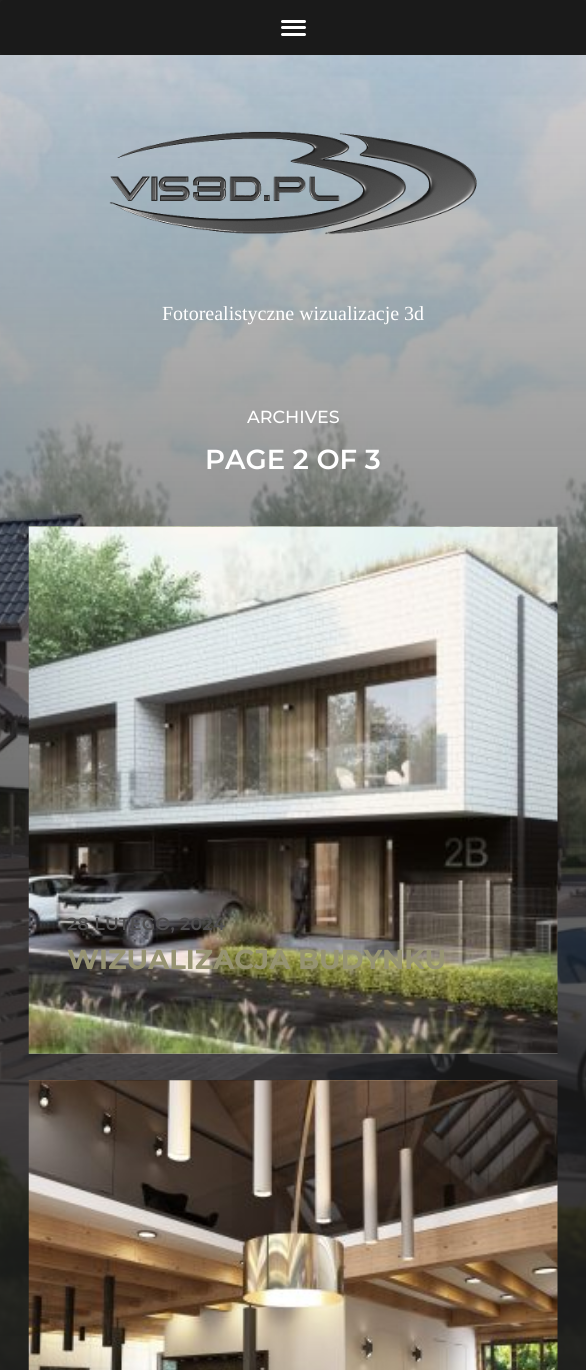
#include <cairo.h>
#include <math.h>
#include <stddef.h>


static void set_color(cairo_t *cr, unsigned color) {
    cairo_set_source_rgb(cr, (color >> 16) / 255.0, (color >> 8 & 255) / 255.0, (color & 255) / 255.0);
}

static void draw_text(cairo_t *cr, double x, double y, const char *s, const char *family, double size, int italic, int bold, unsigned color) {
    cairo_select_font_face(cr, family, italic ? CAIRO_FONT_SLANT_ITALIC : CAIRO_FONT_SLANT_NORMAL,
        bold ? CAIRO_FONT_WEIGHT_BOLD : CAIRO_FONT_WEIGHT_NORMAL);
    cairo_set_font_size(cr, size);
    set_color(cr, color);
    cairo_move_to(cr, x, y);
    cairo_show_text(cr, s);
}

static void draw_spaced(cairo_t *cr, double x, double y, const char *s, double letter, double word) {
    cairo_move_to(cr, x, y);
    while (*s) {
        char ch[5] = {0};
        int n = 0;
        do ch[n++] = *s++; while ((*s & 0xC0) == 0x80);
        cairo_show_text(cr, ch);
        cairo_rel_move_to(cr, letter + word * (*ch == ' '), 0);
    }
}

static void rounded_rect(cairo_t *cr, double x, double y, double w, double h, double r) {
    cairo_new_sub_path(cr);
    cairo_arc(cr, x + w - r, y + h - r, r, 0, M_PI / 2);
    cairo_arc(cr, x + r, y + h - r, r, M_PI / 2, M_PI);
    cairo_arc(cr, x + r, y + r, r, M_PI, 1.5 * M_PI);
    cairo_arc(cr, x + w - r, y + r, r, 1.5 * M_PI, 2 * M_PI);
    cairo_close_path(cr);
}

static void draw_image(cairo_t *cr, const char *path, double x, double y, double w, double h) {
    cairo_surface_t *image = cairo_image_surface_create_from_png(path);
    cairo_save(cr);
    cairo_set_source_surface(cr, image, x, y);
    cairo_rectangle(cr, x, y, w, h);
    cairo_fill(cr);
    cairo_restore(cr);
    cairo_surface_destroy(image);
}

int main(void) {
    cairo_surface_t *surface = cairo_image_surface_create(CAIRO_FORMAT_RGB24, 586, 1370);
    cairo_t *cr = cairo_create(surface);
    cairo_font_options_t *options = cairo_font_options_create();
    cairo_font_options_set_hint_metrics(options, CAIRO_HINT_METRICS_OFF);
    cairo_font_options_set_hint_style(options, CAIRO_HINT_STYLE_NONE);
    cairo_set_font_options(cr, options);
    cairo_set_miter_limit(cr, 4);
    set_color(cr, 0x1D1D1D);
    cairo_paint(cr);
    set_color(cr, 0x1A1A1A);
    rounded_rect(cr, 0, 0, 586, 55, 4);
    cairo_fill(cr);
    set_color(cr, 0xFFFFFF);
    rounded_rect(cr, 281, 20, 25, 3, 1.5);
    cairo_fill(cr);
    rounded_rect(cr, 281, 26, 25, 3, 1.5);
    cairo_fill(cr);
    rounded_rect(cr, 281, 33, 25, 3, 1.5);
    cairo_fill(cr);
    draw_image(cr, "assets/img1.png", 0, 55, 586, 1315);
    draw_image(cr, "assets/img2.png", 109, 131, 368, 104);
    draw_text(cr, 162, 320, "Fotorealistyczne wizualizacje 3d", "Liberation Serif", 20, 0, 0, 0xFFFFFF);
    draw_text(cr, 247, 423, "ARCHIVES", "Montserrat Medium", 17.5, 0, 0, 0xFFFFFF);
    draw_text(cr, 205, 469, "PAGE 2 OF 3", "Montserrat SemiBold", 27.5, 0, 0, 0xFFFFFF);
    draw_image(cr, "assets/img3.png", 28, 526, 530, 528);
    cairo_set_font_size(cr, 17.5);
    set_color(cr, 0x4F4E4F);
    draw_spaced(cr, 67, 930, "28 LUTEGO, 2024", 0.25, 0);
    draw_text(cr, 67, 969, "WIZUALIZACJA BUDYNKU", "Montserrat", 27.5, 0, 1, 0x969372);
    draw_image(cr, "assets/img4.png", 28, 1080, 530, 290);
    cairo_surface_write_to_png(surface, "output.png");
    cairo_font_options_destroy(options);
    cairo_destroy(cr);
    cairo_surface_destroy(surface);
    return 0;
}
